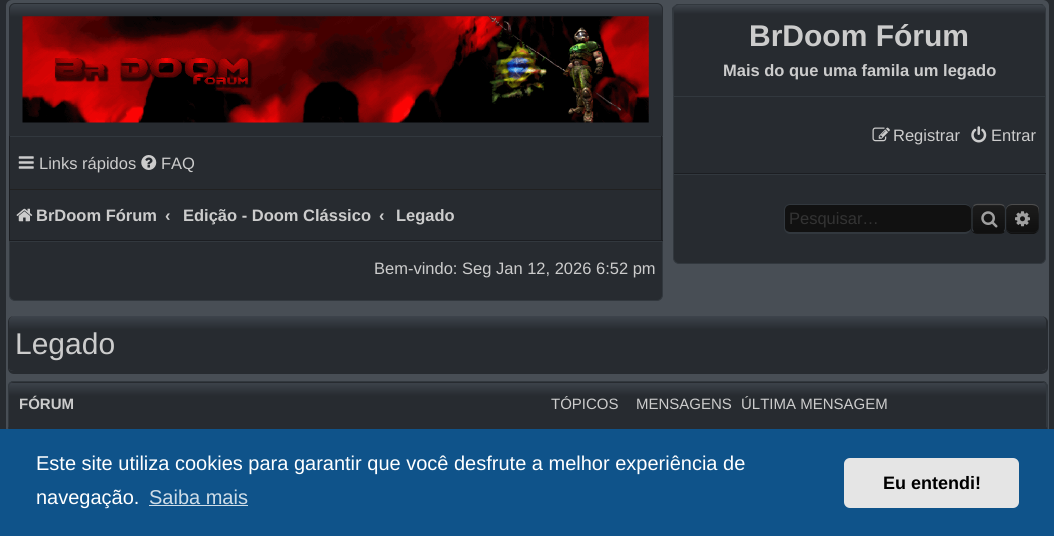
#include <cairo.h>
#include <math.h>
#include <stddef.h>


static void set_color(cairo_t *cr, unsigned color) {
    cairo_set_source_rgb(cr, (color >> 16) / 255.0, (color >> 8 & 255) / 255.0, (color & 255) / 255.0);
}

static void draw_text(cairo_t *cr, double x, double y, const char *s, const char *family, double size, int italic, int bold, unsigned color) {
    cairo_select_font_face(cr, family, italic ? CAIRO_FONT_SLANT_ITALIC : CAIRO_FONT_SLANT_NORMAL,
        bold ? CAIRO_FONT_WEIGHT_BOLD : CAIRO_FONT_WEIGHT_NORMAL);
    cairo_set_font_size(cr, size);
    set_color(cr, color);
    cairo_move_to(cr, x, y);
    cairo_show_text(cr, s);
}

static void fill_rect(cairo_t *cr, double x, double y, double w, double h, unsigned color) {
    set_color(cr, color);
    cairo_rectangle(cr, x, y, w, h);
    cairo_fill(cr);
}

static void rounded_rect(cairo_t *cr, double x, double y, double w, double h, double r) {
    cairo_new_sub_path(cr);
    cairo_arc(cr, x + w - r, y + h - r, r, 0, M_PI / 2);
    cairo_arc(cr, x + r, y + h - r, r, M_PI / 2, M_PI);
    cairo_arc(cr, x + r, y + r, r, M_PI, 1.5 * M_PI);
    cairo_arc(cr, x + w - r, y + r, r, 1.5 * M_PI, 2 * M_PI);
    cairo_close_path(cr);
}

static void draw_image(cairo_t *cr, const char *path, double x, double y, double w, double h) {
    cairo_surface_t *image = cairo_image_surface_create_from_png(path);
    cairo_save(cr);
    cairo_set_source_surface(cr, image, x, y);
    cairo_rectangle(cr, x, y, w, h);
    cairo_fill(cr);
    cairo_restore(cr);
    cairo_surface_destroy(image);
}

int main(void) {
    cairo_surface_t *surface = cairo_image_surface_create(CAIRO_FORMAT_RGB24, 1054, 536);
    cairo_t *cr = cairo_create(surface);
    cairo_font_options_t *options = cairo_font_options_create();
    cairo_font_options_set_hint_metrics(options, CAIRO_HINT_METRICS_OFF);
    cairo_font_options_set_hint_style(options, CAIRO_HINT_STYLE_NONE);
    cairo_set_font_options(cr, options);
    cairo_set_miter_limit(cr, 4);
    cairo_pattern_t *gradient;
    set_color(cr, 0x272B30);
    cairo_paint(cr);
    set_color(cr, 0x484E55);
    rounded_rect(cr, 6, 0, 1043, 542, 6);
    cairo_fill(cr);
    cairo_save(cr);
    cairo_new_path(cr);
    cairo_move_to(cr, 15, 3);
    cairo_line_to(cr, 657, 3);
    cairo_curve_to(cr, 660.5, 3, 663, 5.5, 663, 9);
    cairo_line_to(cr, 663, 136);
    cairo_line_to(cr, 9, 136);
    cairo_line_to(cr, 9, 9);
    cairo_curve_to(cr, 9, 5.5, 11.5, 3, 15, 3);
    cairo_close_path(cr);
    cairo_clip(cr);
    gradient = cairo_pattern_create_linear(336, 3.7, 336, 135);
    cairo_pattern_add_color_stop_rgba(gradient, 0, 0.243, 0.267, 0.298, 1);
    cairo_pattern_add_color_stop_rgba(gradient, 0.1, 0.153, 0.169, 0.188, 1);
    cairo_pattern_add_color_stop_rgba(gradient, 1, 0.153, 0.169, 0.188, 1);
    cairo_set_source(cr, gradient);
    cairo_pattern_destroy(gradient);
    cairo_rectangle(cr, 9, 4, 654, 131);
    cairo_fill(cr);
    cairo_restore(cr);
    cairo_new_path(cr);
    cairo_move_to(cr, 15, 3.5);
    cairo_line_to(cr, 657, 3.5);
    cairo_curve_to(cr, 660, 3.5, 662.5, 6, 662.5, 9);
    cairo_line_to(cr, 662.5, 135.5);
    cairo_line_to(cr, 9.5, 135.5);
    cairo_line_to(cr, 9.5, 9);
    cairo_curve_to(cr, 9.5, 6, 12, 3.5, 15, 3.5);
    cairo_close_path(cr);
    set_color(cr, 0x272B30);
    cairo_set_line_width(cr, 1);
    cairo_stroke(cr);
    draw_image(cr, "assets/img1.png", 22, 16, 627, 107);
    cairo_save(cr);
    cairo_new_path(cr);
    cairo_move_to(cr, 679, 4);
    cairo_line_to(cr, 1040, 4);
    cairo_curve_to(cr, 1043.5, 4, 1046, 6.5, 1046, 10);
    cairo_line_to(cr, 1046, 96);
    cairo_line_to(cr, 673, 96);
    cairo_line_to(cr, 673, 10);
    cairo_curve_to(cr, 673, 6.5, 675.5, 4, 679, 4);
    cairo_close_path(cr);
    cairo_clip(cr);
    gradient = cairo_pattern_create_linear(859, -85, 859, 5);
    cairo_pattern_add_color_stop_rgba(gradient, 0, 0.243, 0.267, 0.298, 1);
    cairo_pattern_add_color_stop_rgba(gradient, 0.1, 0.153, 0.169, 0.188, 1);
    cairo_pattern_add_color_stop_rgba(gradient, 1, 0.153, 0.169, 0.188, 1);
    cairo_set_source(cr, gradient);
    cairo_pattern_destroy(gradient);
    cairo_rectangle(cr, 673, 4, 373, 1);
    cairo_fill(cr);
    gradient = cairo_pattern_create_linear(859, 5, 859, 95);
    cairo_pattern_add_color_stop_rgba(gradient, 0, 0.243, 0.267, 0.298, 1);
    cairo_pattern_add_color_stop_rgba(gradient, 0.1, 0.153, 0.169, 0.188, 1);
    cairo_pattern_add_color_stop_rgba(gradient, 1, 0.153, 0.169, 0.188, 1);
    cairo_set_source(cr, gradient);
    cairo_pattern_destroy(gradient);
    cairo_rectangle(cr, 673, 5, 373, 90);
    cairo_fill(cr);
    cairo_restore(cr);
    set_color(cr, 0x32383E);
    cairo_new_path(cr);
    cairo_move_to(cr, 679, 4);
    cairo_curve_to(cr, 677, 4, 676, 5, 674, 6);
    cairo_line_to(cr, 675, 7);
    cairo_curve_to(cr, 676, 6, 677, 5, 679, 5);
    cairo_line_to(cr, 1040, 5);
    cairo_curve_to(cr, 1042, 5, 1043, 6, 1044, 6);
    cairo_curve_to(cr, 1043, 5, 1042, 4, 1040, 4);
    cairo_close_path(cr);
    cairo_fill(cr);
    cairo_new_path(cr);
    cairo_move_to(cr, 1046, 96);
    cairo_line_to(cr, 1046, 9);
    cairo_line_to(cr, 1044, 6);
    cairo_line_to(cr, 1045, 9);
    cairo_line_to(cr, 1045, 95);
    cairo_close_path(cr);
    cairo_fill(cr);
    set_color(cr, 0x272B30);
    cairo_new_path(cr);
    cairo_move_to(cr, 1046, 96);
    cairo_line_to(cr, 1045, 95);
    cairo_line_to(cr, 674, 95);
    cairo_line_to(cr, 673, 96);
    cairo_close_path(cr);
    cairo_fill(cr);
    set_color(cr, 0x32383E);
    cairo_new_path(cr);
    cairo_move_to(cr, 672, 8);
    cairo_line_to(cr, 674, 6);
    cairo_line_to(cr, 675, 7);
    cairo_line_to(cr, 674, 9);
    cairo_line_to(cr, 674, 95);
    cairo_line_to(cr, 673, 96);
    cairo_close_path(cr);
    cairo_fill(cr);
    draw_text(cr, 749, 46, "BrDoom Fórum", "Liberation Sans", 30, 0, 1, 0xCCCCCC);
    draw_text(cr, 723, 76, "Mais do que uma famila um legado", "Liberation Sans", 16.5, 0, 1, 0xCCCCCC);
    fill_rect(cr, 674, 97, 371, 76, 0x272B30);
    fill_rect(cr, 673, 96, 373, 1, 0x32383E);
    fill_rect(cr, 1045, 96, 1, 78, 0x32383E);
    fill_rect(cr, 673, 173, 373, 1, 0x1C1E22);
    fill_rect(cr, 673, 96, 1, 78, 0x32383E);
    draw_image(cr, "assets/img2.png", 872, 127, 18, 15);
    draw_text(cr, 893, 141, "Registrar", "Liberation Sans", 16.5, 0, 0, 0xCCCCCC);
    draw_image(cr, "assets/img3.png", 971, 126, 16, 17);
    draw_text(cr, 991, 141, "Entrar", "Liberation Sans", 16.5, 0, 0, 0xCCCCCC);
    fill_rect(cr, 10, 137, 653, 103, 0x272B30);
    fill_rect(cr, 9, 136, 654, 1, 0x32383E);
    fill_rect(cr, 661, 136, 1, 105, 0x1C1E22);
    fill_rect(cr, 9, 240, 654, 1, 0x1C1E22);
    fill_rect(cr, 9, 136, 1, 105, 0x1C1E22);
    draw_image(cr, "assets/img4.png", 18, 156, 16, 13);
    draw_text(cr, 39, 169, "Links rápidos", "Liberation Sans", 16.5, 0, 0, 0xCCCCCC);
    draw_image(cr, "assets/img5.png", 141, 155, 16, 15);
    draw_text(cr, 161, 169, "FAQ", "Liberation Sans", 16.5, 0, 0, 0xCCCCCC);
    fill_rect(cr, 10, 189, 651, 1, 0x212121);
    draw_image(cr, "assets/img6.png", 16, 208, 17, 14);
    draw_text(cr, 36, 221, "BrDoom Fórum", "Liberation Sans", 16.5, 0, 1, 0xCCCCCC);
    draw_text(cr, 165, 221, "‹", "Liberation Sans", 16.5, 0, 1, 0xCCCCCC);
    draw_text(cr, 183, 221, "Edição - Doom Clássico", "Liberation Sans", 16.5, 0, 1, 0xCCCCCC);
    draw_text(cr, 379, 221, "‹", "Liberation Sans", 16.5, 0, 1, 0xCCCCCC);
    draw_text(cr, 396, 221, "Legado", "Liberation Sans", 16.5, 0, 1, 0xCCCCCC);
    set_color(cr, 0x272B30);
    cairo_new_path(cr);
    cairo_move_to(cr, 673.5, 174.5);
    cairo_line_to(cr, 1045.5, 174.5);
    cairo_line_to(cr, 1045.5, 258);
    cairo_curve_to(cr, 1045.5, 261, 1043, 263.5, 1040, 263.5);
    cairo_line_to(cr, 679, 263.5);
    cairo_curve_to(cr, 676, 263.5, 673.5, 261, 673.5, 258);
    cairo_close_path(cr);
    cairo_fill_preserve(cr);
    set_color(cr, 0x32383E);
    cairo_stroke(cr);
    set_color(cr, 0x111111);
    cairo_new_path(cr);
    cairo_move_to(cr, 790, 205);
    cairo_line_to(cr, 965, 205);
    cairo_curve_to(cr, 968, 205, 971, 207, 971, 210);
    cairo_line_to(cr, 971, 228);
    cairo_curve_to(cr, 971, 230, 968, 232, 965, 232);
    cairo_line_to(cr, 790, 232);
    cairo_curve_to(cr, 787, 232, 785, 230, 785, 228);
    cairo_line_to(cr, 785, 210);
    cairo_curve_to(cr, 785, 207, 787, 205, 790, 205);
    cairo_close_path(cr);
    cairo_fill(cr);
    set_color(cr, 0x32383E);
    cairo_set_fill_rule(cr, CAIRO_FILL_RULE_EVEN_ODD);
    cairo_new_path(cr);
    cairo_move_to(cr, 790, 204);
    cairo_line_to(cr, 965, 204);
    cairo_curve_to(cr, 968, 204, 971, 207, 971, 210);
    cairo_line_to(cr, 971, 228);
    cairo_curve_to(cr, 971, 231, 968, 234, 965, 234);
    cairo_line_to(cr, 790, 234);
    cairo_curve_to(cr, 787, 234, 784, 231, 784, 228);
    cairo_line_to(cr, 784, 210);
    cairo_curve_to(cr, 784, 207, 787, 204, 790, 204);
    cairo_close_path(cr);
    cairo_move_to(cr, 790, 205);
    cairo_line_to(cr, 965, 205);
    cairo_curve_to(cr, 968, 205, 971, 207, 971, 210);
    cairo_line_to(cr, 971, 228);
    cairo_curve_to(cr, 971, 230, 968, 232, 965, 232);
    cairo_line_to(cr, 790, 232);
    cairo_curve_to(cr, 787, 232, 785, 230, 785, 228);
    cairo_line_to(cr, 785, 210);
    cairo_curve_to(cr, 785, 207, 787, 205, 790, 205);
    cairo_close_path(cr);
    cairo_fill(cr);
    draw_text(cr, 789, 224, "Pesquisar…", "Liberation Sans", 16.5, 0, 0, 0x333333);
    cairo_save(cr);
    cairo_set_fill_rule(cr, CAIRO_FILL_RULE_WINDING);
    rounded_rect(cr, 971, 204, 35, 30, 6);
    cairo_clip(cr);
    gradient = cairo_pattern_create_linear(989, 205, 989, 233);
    cairo_pattern_add_color_stop_rgba(gradient, 0, 0.11, 0.11, 0.11, 1);
    cairo_pattern_add_color_stop_rgba(gradient, 1, 0.059, 0.059, 0.059, 1);
    cairo_set_source(cr, gradient);
    cairo_pattern_destroy(gradient);
    cairo_rectangle(cr, 971, 205, 35, 28);
    cairo_fill(cr);
    gradient = cairo_pattern_create_linear(989, 233, 989, 260);
    cairo_pattern_add_color_stop_rgba(gradient, 0, 0.11, 0.11, 0.11, 1);
    cairo_pattern_add_color_stop_rgba(gradient, 1, 0.059, 0.059, 0.059, 1);
    cairo_set_source(cr, gradient);
    cairo_pattern_destroy(gradient);
    cairo_rectangle(cr, 971, 233, 35, 1);
    cairo_fill(cr);
    cairo_restore(cr);
    cairo_new_path(cr);
    cairo_move_to(cr, 973.5, 206);
    cairo_curve_to(cr, 974.5, 205, 976, 204.5, 977.5, 204.5);
    cairo_line_to(cr, 1000, 204.5);
    cairo_curve_to(cr, 1001.5, 204.5, 1003, 205, 1004, 206);
    set_color(cr, 0x4D4D4D);
    cairo_set_line_width(cr, 1.2);
    cairo_stroke(cr);
    cairo_new_path(cr);
    cairo_move_to(cr, 1004, 206);
    cairo_curve_to(cr, 1005, 207, 1005.5, 208.5, 1005.5, 210);
    cairo_line_to(cr, 1005.5, 227.5);
    cairo_curve_to(cr, 1005.5, 229, 1005, 230.5, 1004, 231.5);
    set_color(cr, 0x32383E);
    cairo_stroke(cr);
    cairo_new_path(cr);
    cairo_move_to(cr, 1004, 231.5);
    cairo_curve_to(cr, 1003, 232.5, 1001.5, 233, 1000, 233);
    cairo_line_to(cr, 977.5, 233);
    cairo_curve_to(cr, 976, 233, 974.5, 232.5, 973.5, 231.5);
    set_color(cr, 0x111111);
    cairo_stroke(cr);
    cairo_new_path(cr);
    cairo_move_to(cr, 973.5, 231.5);
    cairo_curve_to(cr, 972.5, 230.5, 972, 229, 972, 227.5);
    cairo_line_to(cr, 972, 210);
    cairo_curve_to(cr, 972, 208.5, 972.5, 207, 973.5, 206);
    set_color(cr, 0x32383E);
    cairo_stroke(cr);
    draw_image(cr, "assets/img7.png", 981, 211, 17, 17);
    draw_image(cr, "assets/img8.png", 1006, 205, 33, 28);
    set_color(cr, 0x4D4D4D);
    cairo_set_fill_rule(cr, CAIRO_FILL_RULE_WINDING);
    cairo_new_path(cr);
    cairo_move_to(cr, 1012.5, 204);
    cairo_curve_to(cr, 1009, 204, 1006, 206.5, 1006, 209.5);
    cairo_curve_to(cr, 1007, 207, 1008.5, 205, 1012.5, 205);
    cairo_line_to(cr, 1027.5, 205);
    cairo_curve_to(cr, 1031.5, 205, 1037.5, 204.5, 1038.5, 209);
    cairo_line_to(cr, 1039, 214);
    cairo_line_to(cr, 1039, 208.5);
    cairo_curve_to(cr, 1038, 205.5, 1035.5, 204, 1032.5, 204);
    cairo_close_path(cr);
    cairo_fill(cr);
    set_color(cr, 0x111111);
    cairo_new_path(cr);
    cairo_move_to(cr, 1011, 234);
    cairo_curve_to(cr, 1008, 233, 1006, 230.5, 1006, 228);
    cairo_curve_to(cr, 1007, 230.5, 1008.5, 232.5, 1012.5, 232.5);
    cairo_line_to(cr, 1029, 232.5);
    cairo_curve_to(cr, 1036, 232.5, 1038, 231.5, 1039, 228.5);
    cairo_line_to(cr, 1039, 229);
    cairo_curve_to(cr, 1038, 231.5, 1036.5, 233, 1034, 234);
    cairo_close_path(cr);
    cairo_fill(cr);
    draw_image(cr, "assets/img9.png", 1015, 211, 15, 16);
    set_color(cr, 0x272B30);
    cairo_new_path(cr);
    cairo_move_to(cr, 9.5, 241.5);
    cairo_line_to(cr, 662.5, 241.5);
    cairo_line_to(cr, 662.5, 295);
    cairo_curve_to(cr, 662.5, 298, 660, 300.5, 657, 300.5);
    cairo_line_to(cr, 15, 300.5);
    cairo_curve_to(cr, 12, 300.5, 9.5, 298, 9.5, 295);
    cairo_close_path(cr);
    cairo_fill_preserve(cr);
    set_color(cr, 0x32383E);
    cairo_set_line_width(cr, 1);
    cairo_stroke(cr);
    draw_text(cr, 374, 274, "Bem-vindo: Seg Jan 12, 2026 6:52 pm", "Liberation Sans", 16.5, 0, 0, 0xCCCCCC);
    gradient = cairo_pattern_create_linear(528, 316, 528, 371);
    cairo_pattern_add_color_stop_rgba(gradient, 0, 0.243, 0.267, 0.298, 1);
    cairo_pattern_add_color_stop_rgba(gradient, 0.25, 0.153, 0.169, 0.188, 1);
    cairo_pattern_add_color_stop_rgba(gradient, 1, 0.153, 0.169, 0.188, 1);
    cairo_set_source(cr, gradient);
    cairo_pattern_destroy(gradient);
    cairo_new_path(cr);
    cairo_move_to(cr, 14, 316);
    cairo_line_to(cr, 1041, 316);
    cairo_curve_to(cr, 1044, 316, 1046, 319, 1046, 322);
    cairo_line_to(cr, 1046, 368);
    cairo_curve_to(cr, 1046, 370, 1044, 371, 1041, 371);
    cairo_line_to(cr, 14, 371);
    cairo_curve_to(cr, 11, 371, 9, 370, 9, 368);
    cairo_line_to(cr, 9, 322);
    cairo_curve_to(cr, 9, 319, 11, 316, 14, 316);
    cairo_close_path(cr);
    cairo_fill(cr);
    set_color(cr, 0x272B30);
    cairo_set_fill_rule(cr, CAIRO_FILL_RULE_EVEN_ODD);
    cairo_new_path(cr);
    cairo_move_to(cr, 14, 316);
    cairo_line_to(cr, 1041, 316);
    cairo_curve_to(cr, 1045, 316, 1048, 319, 1048, 322);
    cairo_line_to(cr, 1048, 368);
    cairo_curve_to(cr, 1048, 371, 1045, 374, 1041, 374);
    cairo_line_to(cr, 14, 374);
    cairo_curve_to(cr, 10, 374, 8, 371, 8, 368);
    cairo_line_to(cr, 8, 322);
    cairo_curve_to(cr, 8, 319, 10, 316, 14, 316);
    cairo_close_path(cr);
    cairo_move_to(cr, 14, 316);
    cairo_line_to(cr, 1041, 316);
    cairo_curve_to(cr, 1044, 316, 1046, 319, 1046, 322);
    cairo_line_to(cr, 1046, 368);
    cairo_curve_to(cr, 1046, 370, 1044, 371, 1041, 371);
    cairo_line_to(cr, 14, 371);
    cairo_curve_to(cr, 11, 371, 9, 370, 9, 368);
    cairo_line_to(cr, 9, 322);
    cairo_curve_to(cr, 9, 319, 11, 316, 14, 316);
    cairo_close_path(cr);
    cairo_fill(cr);
    draw_text(cr, 15, 354, "Legado", "Liberation Sans", 30, 0, 0, 0xCCCCCC);
    cairo_save(cr);
    cairo_set_fill_rule(cr, CAIRO_FILL_RULE_WINDING);
    cairo_new_path(cr);
    cairo_move_to(cr, 14, 381);
    cairo_line_to(cr, 1042, 381);
    cairo_curve_to(cr, 1045.5, 381, 1048, 383.5, 1048, 387);
    cairo_line_to(cr, 1048, 429);
    cairo_line_to(cr, 8, 429);
    cairo_line_to(cr, 8, 387);
    cairo_curve_to(cr, 8, 383.5, 10.5, 381, 14, 381);
    cairo_close_path(cr);
    cairo_clip(cr);
    gradient = cairo_pattern_create_linear(528, 337, 528, 383);
    cairo_pattern_add_color_stop_rgba(gradient, 0, 0.243, 0.267, 0.298, 1);
    cairo_pattern_add_color_stop_rgba(gradient, 0.3, 0.153, 0.169, 0.188, 1);
    cairo_pattern_add_color_stop_rgba(gradient, 1, 0.153, 0.169, 0.188, 1);
    cairo_set_source(cr, gradient);
    cairo_pattern_destroy(gradient);
    cairo_rectangle(cr, 8, 381, 1040, 2);
    cairo_fill(cr);
    gradient = cairo_pattern_create_linear(528, 382, 528, 428);
    cairo_pattern_add_color_stop_rgba(gradient, 0, 0.243, 0.267, 0.298, 1);
    cairo_pattern_add_color_stop_rgba(gradient, 0.3, 0.153, 0.169, 0.188, 1);
    cairo_pattern_add_color_stop_rgba(gradient, 1, 0.153, 0.169, 0.188, 1);
    cairo_set_source(cr, gradient);
    cairo_pattern_destroy(gradient);
    cairo_rectangle(cr, 8, 383, 1040, 45);
    cairo_fill(cr);
    cairo_restore(cr);
    set_color(cr, 0x32383E);
    cairo_set_fill_rule(cr, CAIRO_FILL_RULE_WINDING);
    cairo_new_path(cr);
    cairo_move_to(cr, 14, 382);
    cairo_curve_to(cr, 12, 382, 11, 383, 10, 384);
    cairo_line_to(cr, 9, 383);
    cairo_curve_to(cr, 10, 382, 11, 382, 12, 381);
    cairo_line_to(cr, 1043, 381);
    cairo_line_to(cr, 1046, 383);
    cairo_line_to(cr, 1045, 384);
    cairo_curve_to(cr, 1044, 383, 1043, 382, 1041, 382);
    cairo_close_path(cr);
    cairo_fill(cr);
    cairo_new_path(cr);
    cairo_move_to(cr, 1046, 383);
    cairo_line_to(cr, 1048, 385);
    cairo_line_to(cr, 1048, 429);
    cairo_line_to(cr, 1046, 427);
    cairo_line_to(cr, 1046, 388);
    cairo_curve_to(cr, 1046, 387, 1046, 385, 1045, 384);
    cairo_close_path(cr);
    cairo_fill(cr);
    set_color(cr, 0x272B30);
    cairo_new_path(cr);
    cairo_move_to(cr, 1048, 429);
    cairo_line_to(cr, 8, 429);
    cairo_line_to(cr, 9, 427);
    cairo_line_to(cr, 9, 428);
    cairo_line_to(cr, 1046, 428);
    cairo_line_to(cr, 1046, 427);
    cairo_close_path(cr);
    cairo_fill(cr);
    set_color(cr, 0x32383E);
    cairo_new_path(cr);
    cairo_move_to(cr, 8, 428);
    cairo_line_to(cr, 8, 388);
    cairo_curve_to(cr, 8, 386, 8, 384, 9, 383);
    cairo_line_to(cr, 10, 384);
    cairo_curve_to(cr, 9, 385, 9, 387, 9, 388);
    cairo_line_to(cr, 9, 427);
    cairo_close_path(cr);
    cairo_fill(cr);
    draw_text(cr, 19, 409, "FÓRUM", "Liberation Sans", 15, 0, 1, 0xCCCCCC);
    draw_text(cr, 551, 409, "TÓPICOS", "Liberation Sans", 15, 0, 0, 0xCCCCCC);
    draw_text(cr, 636, 409, "MENSAGENS", "Liberation Sans", 15, 0, 0, 0xCCCCCC);
    draw_text(cr, 741, 409, "ÚLTIMA MENSAGEM", "Liberation Sans", 15, 0, 0, 0xCCCCCC);
    fill_rect(cr, 0, 429, 1054, 107, 0x0F538A);
    draw_text(cr, 36, 470, "Este site utiliza cookies para garantir que você desfrute a melhor experiência de", "Liberation Sans", 20, 0, 0, 0xFFFFFF);
    draw_text(cr, 36, 504, "navegação.", "Liberation Sans", 20, 0, 0, 0xFFFFFF);
    draw_text(cr, 149, 504, "Saiba mais", "Liberation Sans", 20, 0, 0, 0xCFDDE8);
    fill_rect(cr, 149, 505, 99, 1, 0xCFDDE8);
    set_color(cr, 0xE5E5E5);
    rounded_rect(cr, 844, 458, 175, 50, 6);
    cairo_fill(cr);
    draw_text(cr, 883, 489, "Eu entendi!", "Liberation Sans", 18, 0, 1, 0x000000);
    cairo_surface_write_to_png(surface, "output.png");
    cairo_font_options_destroy(options);
    cairo_destroy(cr);
    cairo_surface_destroy(surface);
    return 0;
}
